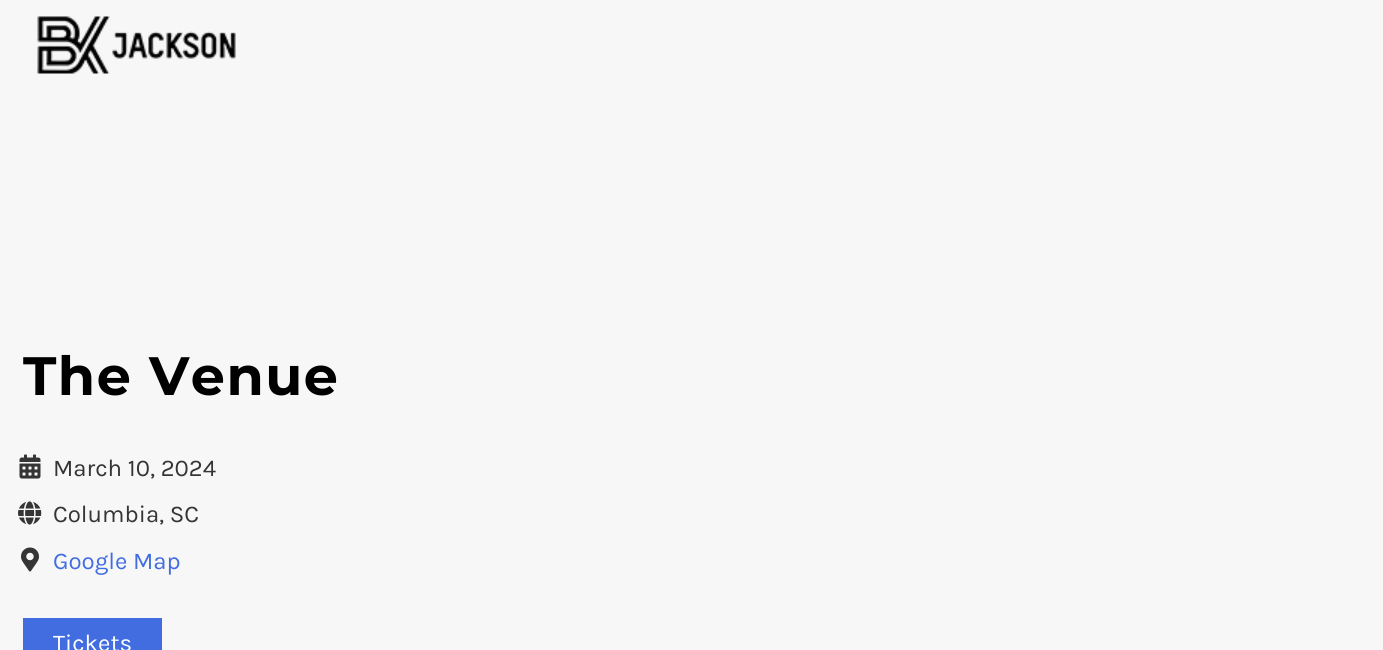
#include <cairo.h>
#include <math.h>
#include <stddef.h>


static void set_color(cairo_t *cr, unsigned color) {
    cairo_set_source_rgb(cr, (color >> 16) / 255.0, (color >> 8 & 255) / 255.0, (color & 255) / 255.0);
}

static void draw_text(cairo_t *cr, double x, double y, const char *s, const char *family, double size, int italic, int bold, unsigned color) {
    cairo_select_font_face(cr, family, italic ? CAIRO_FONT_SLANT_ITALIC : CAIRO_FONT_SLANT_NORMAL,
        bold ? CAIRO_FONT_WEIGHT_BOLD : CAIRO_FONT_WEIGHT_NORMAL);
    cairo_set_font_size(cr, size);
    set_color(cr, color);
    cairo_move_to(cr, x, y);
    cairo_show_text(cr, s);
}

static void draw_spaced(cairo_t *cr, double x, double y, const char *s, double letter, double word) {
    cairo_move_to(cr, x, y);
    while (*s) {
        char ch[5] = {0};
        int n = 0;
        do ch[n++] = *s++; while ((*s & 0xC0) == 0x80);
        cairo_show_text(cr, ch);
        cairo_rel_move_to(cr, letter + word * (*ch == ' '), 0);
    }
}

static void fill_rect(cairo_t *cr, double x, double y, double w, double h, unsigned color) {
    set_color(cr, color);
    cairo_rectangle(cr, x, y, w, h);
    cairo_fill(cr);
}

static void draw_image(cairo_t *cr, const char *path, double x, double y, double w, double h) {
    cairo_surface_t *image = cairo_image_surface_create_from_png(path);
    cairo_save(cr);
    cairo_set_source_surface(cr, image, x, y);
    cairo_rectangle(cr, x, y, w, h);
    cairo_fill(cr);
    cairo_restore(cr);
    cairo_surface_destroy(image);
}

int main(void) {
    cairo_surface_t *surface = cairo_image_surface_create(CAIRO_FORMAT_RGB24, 1383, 650);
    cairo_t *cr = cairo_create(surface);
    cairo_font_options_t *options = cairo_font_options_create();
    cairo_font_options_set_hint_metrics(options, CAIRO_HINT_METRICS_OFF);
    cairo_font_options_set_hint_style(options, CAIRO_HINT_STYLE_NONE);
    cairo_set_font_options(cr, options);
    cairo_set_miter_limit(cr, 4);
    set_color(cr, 0xF7F7F7);
    cairo_paint(cr);
    draw_image(cr, "assets/img1.png", 37, 16, 199, 58);
    cairo_select_font_face(cr, "Montserrat", CAIRO_FONT_SLANT_NORMAL, CAIRO_FONT_WEIGHT_BOLD);
    cairo_set_font_size(cr, 54);
    set_color(cr, 0x000000);
    draw_spaced(cr, 23, 395, "The Venue", 1.5, 0);
    draw_image(cr, "assets/img2.png", 19, 454, 22, 25);
    draw_text(cr, 53, 476, "March 10, 2024", "Karla", 24, 0, 0, 0x353535);
    draw_image(cr, "assets/img3.png", 18, 501, 24, 24);
    draw_text(cr, 53, 522, "Columbia, SC", "Karla", 24, 0, 0, 0x353535);
    draw_image(cr, "assets/img4.png", 21, 547, 18, 25);
    draw_text(cr, 53, 569, "Google Map", "Karla", 24, 0, 0, 0x416DE1);
    fill_rect(cr, 23, 618, 139, 32, 0x416DE1);
    draw_text(cr, 53, 651, "Tickets", "Karla", 24, 0, 0, 0xFFFFFF);
    cairo_surface_write_to_png(surface, "output.png");
    cairo_font_options_destroy(options);
    cairo_destroy(cr);
    cairo_surface_destroy(surface);
    return 0;
}
